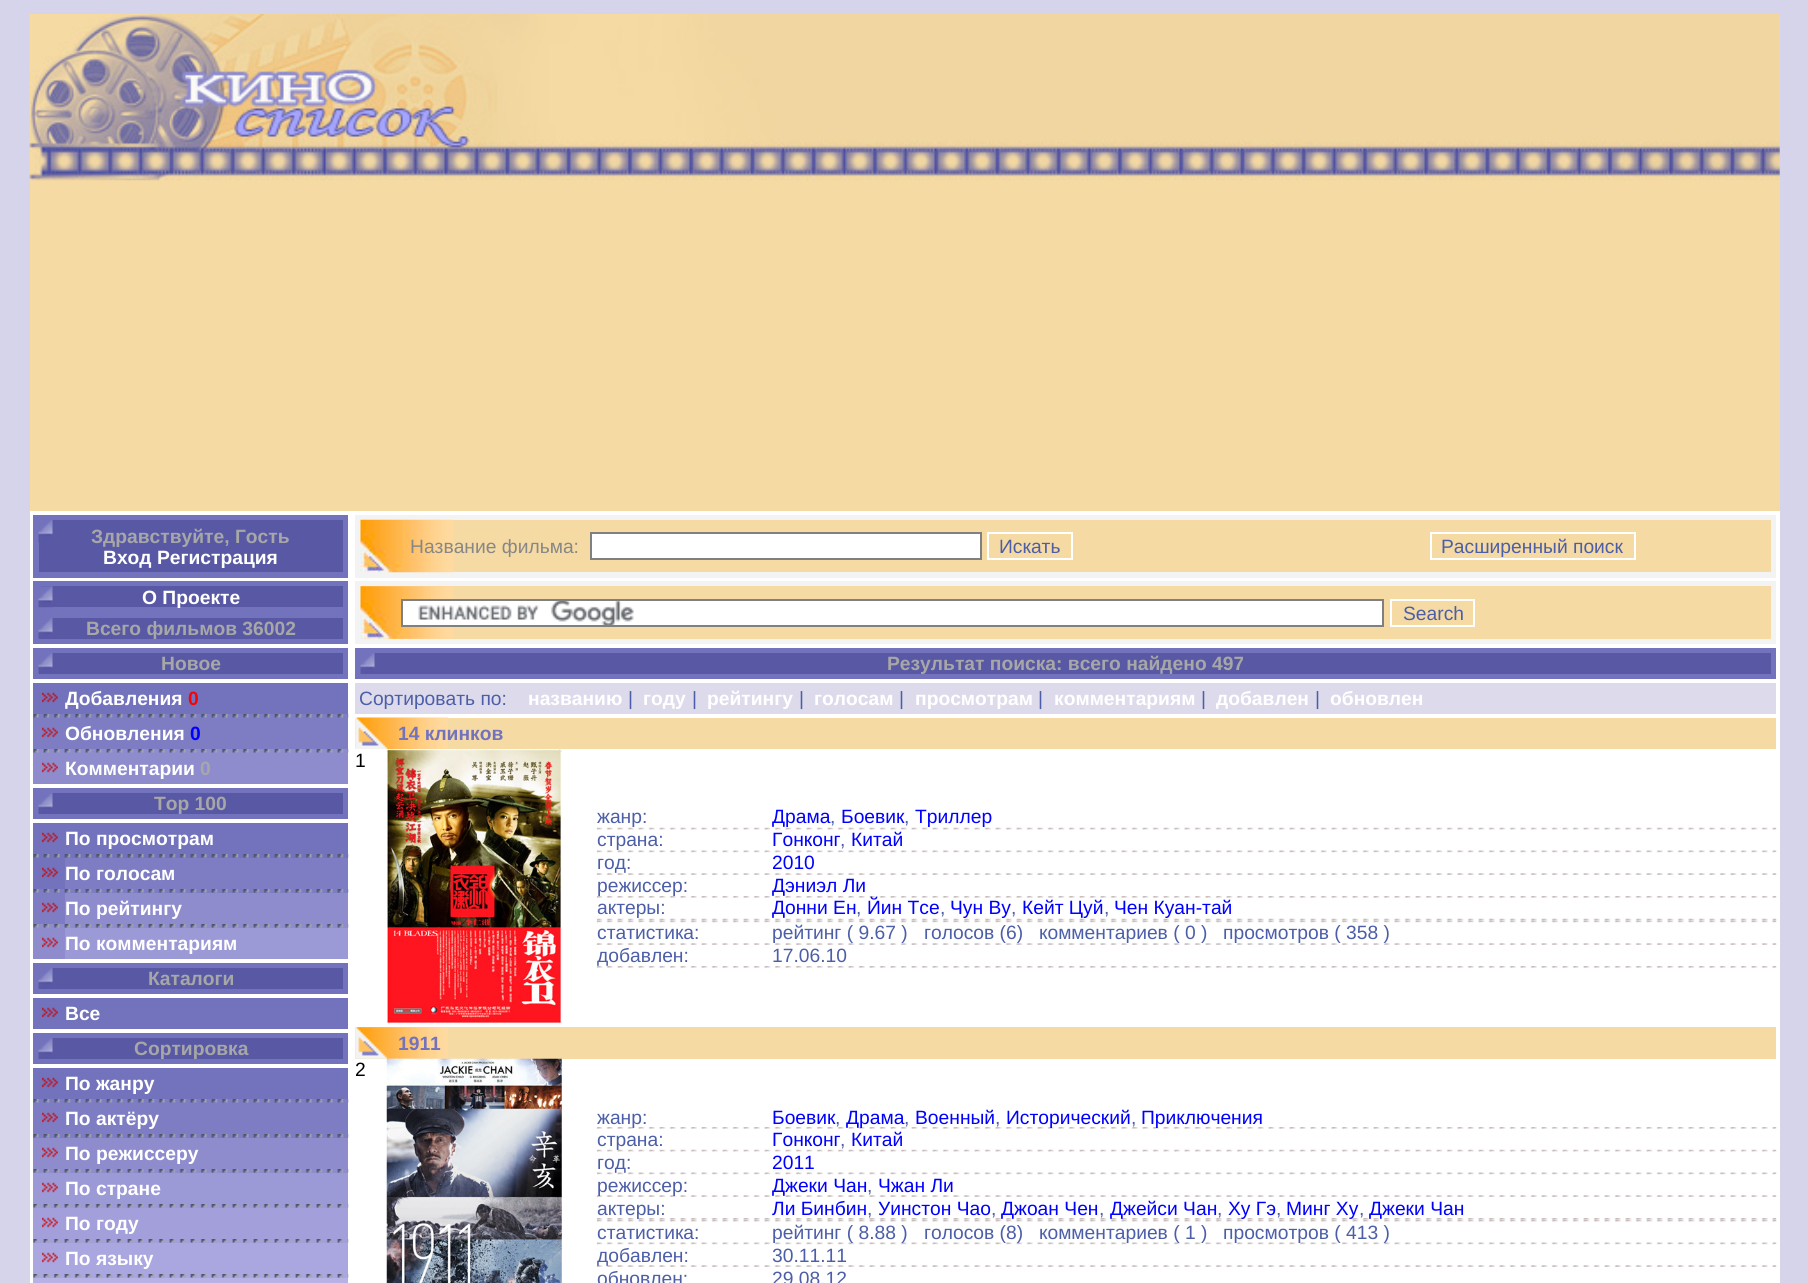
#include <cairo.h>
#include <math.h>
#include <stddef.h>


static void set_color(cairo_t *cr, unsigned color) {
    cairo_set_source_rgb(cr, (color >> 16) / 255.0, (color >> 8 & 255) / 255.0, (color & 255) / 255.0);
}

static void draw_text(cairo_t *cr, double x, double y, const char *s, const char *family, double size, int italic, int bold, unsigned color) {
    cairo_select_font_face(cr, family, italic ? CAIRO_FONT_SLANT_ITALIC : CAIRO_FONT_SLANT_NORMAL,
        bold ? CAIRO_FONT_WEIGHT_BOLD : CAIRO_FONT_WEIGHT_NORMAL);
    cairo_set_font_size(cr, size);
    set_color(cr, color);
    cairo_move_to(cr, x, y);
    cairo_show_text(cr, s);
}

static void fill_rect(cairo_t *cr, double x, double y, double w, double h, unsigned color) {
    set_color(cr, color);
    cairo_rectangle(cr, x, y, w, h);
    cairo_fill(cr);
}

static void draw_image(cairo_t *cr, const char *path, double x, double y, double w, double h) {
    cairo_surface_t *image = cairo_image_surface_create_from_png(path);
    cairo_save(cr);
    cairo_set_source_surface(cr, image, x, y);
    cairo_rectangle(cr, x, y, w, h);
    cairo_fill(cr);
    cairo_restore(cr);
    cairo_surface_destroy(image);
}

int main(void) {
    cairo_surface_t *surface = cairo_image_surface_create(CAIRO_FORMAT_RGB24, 1808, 1283);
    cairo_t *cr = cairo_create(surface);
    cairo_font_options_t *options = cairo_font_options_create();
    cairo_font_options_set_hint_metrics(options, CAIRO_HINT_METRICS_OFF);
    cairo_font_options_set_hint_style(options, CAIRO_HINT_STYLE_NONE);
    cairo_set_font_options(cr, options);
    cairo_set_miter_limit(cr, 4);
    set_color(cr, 0xD6D4EA);
    cairo_paint(cr);
    fill_rect(cr, 30, 14, 1750, 497, 0xF5DAA3);
    draw_image(cr, "assets/img1.png", 29, 14, 1751, 167);
    fill_rect(cr, 30, 511, 1750, 772, 0xFFFFFF);
    fill_rect(cr, 33, 515, 315, 63, 0x7373BD);
    fill_rect(cr, 39, 520, 304, 52, 0x5858A5);
    draw_image(cr, "assets/img2.png", 38, 520, 15, 23);
    draw_text(cr, 91, 543, "Здравствуйте, Гость", "Liberation Sans", 19.25, 0, 1, 0xA7A7A7);
    draw_text(cr, 103, 564, "Вход Регистрация", "Liberation Sans", 19.25, 0, 1, 0xFFFFFF);
    fill_rect(cr, 33, 581, 315, 63, 0x7373BD);
    fill_rect(cr, 39, 586, 304, 21, 0x5858A5);
    draw_image(cr, "assets/img3.png", 38, 586, 15, 22);
    draw_text(cr, 142, 604, "О Проекте", "Liberation Sans", 19.25, 0, 1, 0xFFFFFF);
    fill_rect(cr, 39, 618, 304, 21, 0x5858A5);
    draw_image(cr, "assets/img4.png", 38, 618, 15, 21);
    draw_text(cr, 86, 635, "Всего фильмов 36002", "Liberation Sans", 19.25, 0, 1, 0xA7A7A7);
    fill_rect(cr, 33, 648, 315, 31, 0x7373BD);
    fill_rect(cr, 39, 653, 304, 21, 0x5858A5);
    draw_image(cr, "assets/img4.png", 38, 653, 15, 21);
    draw_text(cr, 161, 670, "Новое", "Liberation Sans", 19.25, 0, 1, 0xA7A7A7);
    fill_rect(cr, 33, 683, 315, 31, 0x7373BD);
    draw_image(cr, "assets/img5.png", 42, 692, 16, 11);
    draw_text(cr, 65, 705, "Добавления", "Liberation Sans", 19.25, 0, 1, 0xFFFFFF);
    draw_text(cr, 188, 705, "0", "Liberation Sans", 19.25, 0, 1, 0xFF0000);
    fill_rect(cr, 33, 714, 315, 4, 0x7E7DC4);
    draw_image(cr, "assets/img6.png", 33, 714, 316, 4);
    fill_rect(cr, 33, 718, 315, 31, 0x7E7DC4);
    draw_image(cr, "assets/img7.png", 42, 727, 16, 11);
    draw_text(cr, 65, 740, "Обновления", "Liberation Sans", 19.25, 0, 1, 0xFFFFFF);
    draw_text(cr, 190, 740, "0", "Liberation Sans", 19.25, 0, 1, 0x0000FF);
    fill_rect(cr, 33, 749, 315, 4, 0x8E8CCD);
    draw_image(cr, "assets/img8.png", 33, 749, 316, 4);
    fill_rect(cr, 33, 753, 315, 31, 0x8E8CCD);
    draw_image(cr, "assets/img9.png", 42, 762, 16, 11);
    draw_text(cr, 65, 775, "Комментарии", "Liberation Sans", 19.25, 0, 1, 0xFFFFFF);
    draw_text(cr, 200, 775, "0", "Liberation Sans", 19.25, 0, 1, 0xA7A7A7);
    fill_rect(cr, 33, 788, 315, 31, 0x7373BD);
    fill_rect(cr, 39, 793, 304, 21, 0x5858A5);
    draw_image(cr, "assets/img4.png", 38, 793, 15, 21);
    draw_text(cr, 154, 810, "Top 100", "Liberation Sans", 19.25, 0, 1, 0xA7A7A7);
    fill_rect(cr, 33, 823, 315, 35, 0x7373BD);
    draw_image(cr, "assets/img5.png", 42, 832, 16, 11);
    draw_text(cr, 65, 845, "По просмотрам", "Liberation Sans", 19.25, 0, 1, 0xFFFFFF);
    draw_image(cr, "assets/img10.png", 33, 854, 316, 4);
    fill_rect(cr, 33, 858, 32, 31, 0x7373BD);
    draw_image(cr, "assets/img5.png", 42, 867, 16, 11);
    fill_rect(cr, 65, 858, 283, 31, 0x7E7DC4);
    draw_text(cr, 65, 880, "По голосам", "Liberation Sans", 19.25, 0, 1, 0xFFFFFF);
    fill_rect(cr, 33, 889, 315, 4, 0x7E7DC4);
    draw_image(cr, "assets/img6.png", 33, 889, 316, 4);
    fill_rect(cr, 33, 893, 32, 31, 0x7E7DC4);
    draw_image(cr, "assets/img7.png", 42, 902, 16, 11);
    fill_rect(cr, 65, 893, 283, 31, 0x8E8CCD);
    draw_text(cr, 65, 915, "По рейтингу", "Liberation Sans", 19.25, 0, 1, 0xFFFFFF);
    fill_rect(cr, 33, 924, 315, 4, 0x8E8CCD);
    draw_image(cr, "assets/img8.png", 33, 924, 316, 4);
    fill_rect(cr, 33, 928, 32, 31, 0x8E8CCD);
    draw_image(cr, "assets/img9.png", 42, 937, 16, 11);
    fill_rect(cr, 65, 928, 283, 31, 0x9C99D7);
    draw_text(cr, 65, 950, "По комментариям", "Liberation Sans", 19.25, 0, 1, 0xFFFFFF);
    fill_rect(cr, 33, 963, 315, 31, 0x7373BD);
    fill_rect(cr, 39, 968, 304, 21, 0x5858A5);
    draw_image(cr, "assets/img4.png", 38, 968, 15, 21);
    draw_text(cr, 148, 985, "Каталоги", "Liberation Sans", 19.25, 0, 1, 0xA7A7A7);
    fill_rect(cr, 33, 998, 315, 31, 0x7373BD);
    draw_image(cr, "assets/img5.png", 42, 1007, 16, 11);
    draw_text(cr, 65, 1020, "Все", "Liberation Sans", 19.25, 0, 1, 0xFFFFFF);
    fill_rect(cr, 33, 1033, 315, 31, 0x7373BD);
    fill_rect(cr, 39, 1038, 304, 21, 0x5858A5);
    draw_image(cr, "assets/img4.png", 38, 1038, 15, 21);
    draw_text(cr, 134, 1055, "Сортировка", "Liberation Sans", 19.25, 0, 1, 0xA7A7A7);
    fill_rect(cr, 33, 1068, 315, 31, 0x7373BD);
    draw_image(cr, "assets/img5.png", 42, 1077, 16, 11);
    draw_text(cr, 65, 1090, "По жанру", "Liberation Sans", 19.25, 0, 1, 0xFFFFFF);
    fill_rect(cr, 33, 1099, 315, 4, 0x7E7DC4);
    draw_image(cr, "assets/img6.png", 33, 1099, 316, 4);
    fill_rect(cr, 33, 1103, 315, 35, 0x7E7DC4);
    draw_image(cr, "assets/img7.png", 42, 1112, 16, 11);
    draw_text(cr, 65, 1125, "По актёру", "Liberation Sans", 19.25, 0, 1, 0xFFFFFF);
    draw_image(cr, "assets/img6.png", 33, 1134, 316, 4);
    fill_rect(cr, 33, 1138, 315, 35, 0x8E8CCD);
    draw_image(cr, "assets/img9.png", 42, 1147, 16, 11);
    draw_text(cr, 65, 1160, "По режиссеру", "Liberation Sans", 19.25, 0, 1, 0xFFFFFF);
    draw_image(cr, "assets/img8.png", 33, 1169, 316, 4);
    fill_rect(cr, 33, 1173, 315, 35, 0x9C99D7);
    draw_image(cr, "assets/img11.png", 42, 1182, 16, 11);
    draw_text(cr, 65, 1195, "По стране", "Liberation Sans", 19.25, 0, 1, 0xFFFFFF);
    draw_image(cr, "assets/img12.png", 33, 1204, 316, 4);
    fill_rect(cr, 33, 1208, 315, 35, 0xA39FDB);
    draw_image(cr, "assets/img13.png", 42, 1217, 16, 11);
    draw_text(cr, 65, 1230, "По году", "Liberation Sans", 19.25, 0, 1, 0xFFFFFF);
    draw_image(cr, "assets/img14.png", 33, 1239, 316, 4);
    fill_rect(cr, 33, 1243, 315, 35, 0xAAA6DF);
    draw_image(cr, "assets/img15.png", 42, 1252, 16, 11);
    draw_text(cr, 65, 1265, "По языку", "Liberation Sans", 19.25, 0, 1, 0xFFFFFF);
    draw_image(cr, "assets/img16.png", 33, 1274, 316, 4);
    fill_rect(cr, 33, 1278, 315, 5, 0xB7B2E6);
    fill_rect(cr, 355, 515, 1421, 63, 0xF3F3F3);
    fill_rect(cr, 453, 520, 1318, 52, 0xF5DAA3);
    draw_image(cr, "assets/img17.png", 360, 519, 94, 54);
    draw_text(cr, 410, 553, "Название фильма:", "Liberation Sans", 19.25, 0, 0, 0x878787);
    set_color(cr, 0xFFFFFF);
    cairo_rectangle(cr, 591, 533, 390, 26);
    cairo_fill_preserve(cr);
    set_color(cr, 0x808080);
    cairo_stroke(cr);
    cairo_rectangle(cr, 988, 533, 84, 26);
    set_color(cr, 0xFFFFFF);
    cairo_stroke(cr);
    draw_text(cr, 999, 553, "Искать", "Liberation Sans", 19.25, 0, 0, 0x4C5EA8);
    cairo_rectangle(cr, 1431, 533, 204, 26);
    set_color(cr, 0xFFFFFF);
    cairo_stroke(cr);
    draw_text(cr, 1441, 553, "Расширенный поиск", "Liberation Sans", 19.25, 0, 0, 0x4C5EA8);
    fill_rect(cr, 355, 581, 1421, 63, 0xF3F3F3);
    fill_rect(cr, 361, 586, 1410, 53, 0xF5DAA3);
    draw_image(cr, "assets/img18.png", 360, 586, 93, 53);
    fill_rect(cr, 403, 601, 979, 24, 0xFFFFFF);
    draw_image(cr, "assets/img19.png", 418, 601, 216, 24);
    cairo_rectangle(cr, 402, 600, 981, 26);
    set_color(cr, 0x808080);
    cairo_stroke(cr);
    cairo_rectangle(cr, 1391, 600, 83, 26);
    set_color(cr, 0xFFFFFF);
    cairo_stroke(cr);
    draw_text(cr, 1403, 620, "Search", "Liberation Sans", 19.25, 0, 0, 0x4C5EA8);
    fill_rect(cr, 355, 648, 1421, 31, 0x7373BD);
    fill_rect(cr, 361, 653, 1410, 21, 0x5858A5);
    draw_image(cr, "assets/img4.png", 360, 653, 15, 21);
    draw_text(cr, 887, 670, "Результат поиска: всего найдено 497", "Liberation Sans", 19.25, 0, 1, 0xA7A7A7);
    fill_rect(cr, 355, 683, 1421, 31, 0xDDDBEB);
    draw_text(cr, 359, 705, "Сортировать по:", "Liberation Sans", 19.25, 0, 0, 0x4C5EA8);
    draw_text(cr, 528, 705, "названию", "Liberation Sans", 19.25, 0, 1, 0xFFFFFF);
    draw_text(cr, 628, 705, "|", "Liberation Sans", 19.25, 0, 0, 0x4C5EA8);
    draw_text(cr, 643, 705, "году", "Liberation Sans", 19.25, 0, 1, 0xFFFFFF);
    draw_text(cr, 692, 705, "|", "Liberation Sans", 19.25, 0, 0, 0x4C5EA8);
    draw_text(cr, 707, 705, "рейтингу", "Liberation Sans", 19.25, 0, 1, 0xFFFFFF);
    draw_text(cr, 799, 705, "|", "Liberation Sans", 19.25, 0, 0, 0x4C5EA8);
    draw_text(cr, 814, 705, "голосам", "Liberation Sans", 19.25, 0, 1, 0xFFFFFF);
    draw_text(cr, 899, 705, "|", "Liberation Sans", 19.25, 0, 0, 0x4C5EA8);
    draw_text(cr, 915, 705, "просмотрам", "Liberation Sans", 19.25, 0, 1, 0xFFFFFF);
    draw_text(cr, 1038, 705, "|", "Liberation Sans", 19.25, 0, 0, 0x4C5EA8);
    draw_text(cr, 1054, 705, "комментариям", "Liberation Sans", 19.25, 0, 1, 0xFFFFFF);
    draw_text(cr, 1201, 705, "|", "Liberation Sans", 19.25, 0, 0, 0x4C5EA8);
    draw_text(cr, 1216, 705, "добавлен", "Liberation Sans", 19.25, 0, 1, 0xFFFFFF);
    draw_text(cr, 1315, 705, "|", "Liberation Sans", 19.25, 0, 0, 0x4C5EA8);
    draw_text(cr, 1330, 705, "обновлен", "Liberation Sans", 19.25, 0, 1, 0xFFFFFF);
    fill_rect(cr, 355, 718, 1421, 31, 0xF5DAA3);
    draw_image(cr, "assets/img20.png", 355, 717, 93, 32);
    draw_text(cr, 398, 740, "14 клинков", "Liberation Sans", 19.25, 0, 1, 0x7373BD);
    draw_text(cr, 355, 767, "1", "Liberation Sans", 19.25, 0, 0, 0x000000);
    draw_image(cr, "assets/img21.png", 386, 749, 176, 275);
    draw_text(cr, 597, 823, "жанр:", "Liberation Sans", 19.25, 0, 0, 0x4C5EA8);
    draw_text(cr, 772, 823, "Драма", "Liberation Sans", 19.25, 0, 0, 0x0000FF);
    draw_text(cr, 830, 823, ",", "Liberation Sans", 19.25, 0, 0, 0x4C5EA8);
    draw_text(cr, 841, 823, "Боевик", "Liberation Sans", 19.25, 0, 0, 0x0000FF);
    draw_text(cr, 904, 823, ",", "Liberation Sans", 19.25, 0, 0, 0x4C5EA8);
    draw_text(cr, 915, 823, "Триллер", "Liberation Sans", 19.25, 0, 0, 0x0000FF);
    draw_image(cr, "assets/img22.png", 596, 827, 1181, 3);
    draw_text(cr, 597, 846, "страна:", "Liberation Sans", 19.25, 0, 0, 0x4C5EA8);
    draw_text(cr, 772, 846, "Гонконг", "Liberation Sans", 19.25, 0, 0, 0x0000FF);
    draw_text(cr, 840, 846, ",", "Liberation Sans", 19.25, 0, 0, 0x4C5EA8);
    draw_text(cr, 851, 846, "Китай", "Liberation Sans", 19.25, 0, 0, 0x0000FF);
    draw_image(cr, "assets/img23.png", 596, 850, 1181, 3);
    draw_text(cr, 597, 869, "год:", "Liberation Sans", 19.25, 0, 0, 0x4C5EA8);
    draw_text(cr, 772, 869, "2010", "Liberation Sans", 19.25, 0, 0, 0x0000FF);
    draw_image(cr, "assets/img24.png", 596, 873, 1181, 2);
    draw_text(cr, 597, 892, "режиссер:", "Liberation Sans", 19.25, 0, 0, 0x4C5EA8);
    draw_text(cr, 772, 892, "Дэниэл Ли", "Liberation Sans", 19.25, 0, 0, 0x0000FF);
    draw_image(cr, "assets/img25.png", 596, 896, 1181, 2);
    draw_text(cr, 597, 914, "актеры:", "Liberation Sans", 19.25, 0, 0, 0x4C5EA8);
    draw_text(cr, 772, 914, "Донни Ен", "Liberation Sans", 19.25, 0, 0, 0x0000FF);
    draw_text(cr, 856, 914, ",", "Liberation Sans", 19.25, 0, 0, 0x4C5EA8);
    draw_text(cr, 867, 914, "Йин Тсе", "Liberation Sans", 19.25, 0, 0, 0x0000FF);
    draw_text(cr, 940, 914, ",", "Liberation Sans", 19.25, 0, 0, 0x4C5EA8);
    draw_text(cr, 950, 914, "Чун Ву", "Liberation Sans", 19.25, 0, 0, 0x0000FF);
    draw_text(cr, 1011, 914, ",", "Liberation Sans", 19.25, 0, 0, 0x4C5EA8);
    draw_text(cr, 1022, 914, "Кейт Цуй", "Liberation Sans", 19.25, 0, 0, 0x0000FF);
    draw_text(cr, 1104, 914, ",", "Liberation Sans", 19.25, 0, 0, 0x4C5EA8);
    draw_text(cr, 1114, 914, "Чен Куан-тай", "Liberation Sans", 19.25, 0, 0, 0x0000FF);
    draw_image(cr, "assets/img22.png", 596, 918, 1181, 3);
    draw_image(cr, "assets/img26.png", 596, 920, 1181, 3);
    draw_text(cr, 597, 939, "статистика:", "Liberation Sans", 19.25, 0, 0, 0x4C5EA8);
    draw_text(cr, 772, 939, "рейтинг ( 9.67 )", "Liberation Sans", 19.25, 0, 0, 0x4C5EA8);
    draw_text(cr, 924, 939, "голосов (6)", "Liberation Sans", 19.25, 0, 0, 0x4C5EA8);
    draw_text(cr, 1039, 939, "комментариев ( 0 )", "Liberation Sans", 19.25, 0, 0, 0x4C5EA8);
    draw_text(cr, 1223, 939, "просмотров ( 358 )", "Liberation Sans", 19.25, 0, 0, 0x4C5EA8);
    draw_image(cr, "assets/img24.png", 596, 943, 1181, 2);
    draw_text(cr, 597, 962, "добавлен:", "Liberation Sans", 19.25, 0, 0, 0x4C5EA8);
    draw_text(cr, 772, 962, "17.06.10", "Liberation Sans", 19.25, 0, 0, 0x4C5EA8);
    draw_image(cr, "assets/img25.png", 596, 966, 1181, 2);
    fill_rect(cr, 355, 1027, 1421, 32, 0xF5DAA3);
    draw_image(cr, "assets/img27.png", 355, 1027, 93, 32);
    draw_text(cr, 398, 1050, "1911", "Liberation Sans", 19.25, 0, 1, 0x7373BD);
    draw_text(cr, 355, 1076, "2", "Liberation Sans", 19.25, 0, 0, 0x000000);
    draw_image(cr, "assets/img28.png", 386, 1058, 176, 225);
    draw_image(cr, "assets/img25.png", 596, 1127, 1181, 2);
    draw_text(cr, 597, 1124, "жанр:", "Liberation Sans", 19.25, 0, 0, 0x4C5EA8);
    draw_text(cr, 772, 1124, "Боевик", "Liberation Sans", 19.25, 0, 0, 0x0000FF);
    draw_text(cr, 835, 1124, ",", "Liberation Sans", 19.25, 0, 0, 0x4C5EA8);
    draw_text(cr, 846, 1124, "Драма", "Liberation Sans", 19.25, 0, 0, 0x0000FF);
    draw_text(cr, 904, 1124, ",", "Liberation Sans", 19.25, 0, 0, 0x4C5EA8);
    draw_text(cr, 915, 1124, "Военный", "Liberation Sans", 19.25, 0, 0, 0x0000FF);
    draw_text(cr, 995, 1124, ",", "Liberation Sans", 19.25, 0, 0, 0x4C5EA8);
    draw_text(cr, 1006, 1124, "Исторический", "Liberation Sans", 19.25, 0, 0, 0x0000FF);
    draw_text(cr, 1131, 1124, ",", "Liberation Sans", 19.25, 0, 0, 0x4C5EA8);
    draw_text(cr, 1141, 1124, "Приключения", "Liberation Sans", 19.25, 0, 0, 0x0000FF);
    draw_image(cr, "assets/img22.png", 596, 1149, 1181, 3);
    draw_text(cr, 597, 1146, "страна:", "Liberation Sans", 19.25, 0, 0, 0x4C5EA8);
    draw_text(cr, 772, 1146, "Гонконг", "Liberation Sans", 19.25, 0, 0, 0x0000FF);
    draw_text(cr, 840, 1146, ",", "Liberation Sans", 19.25, 0, 0, 0x4C5EA8);
    draw_text(cr, 851, 1146, "Китай", "Liberation Sans", 19.25, 0, 0, 0x0000FF);
    draw_image(cr, "assets/img23.png", 596, 1172, 1181, 3);
    draw_text(cr, 597, 1169, "год:", "Liberation Sans", 19.25, 0, 0, 0x4C5EA8);
    draw_text(cr, 772, 1169, "2011", "Liberation Sans", 19.25, 0, 0, 0x0000FF);
    draw_image(cr, "assets/img24.png", 596, 1195, 1181, 2);
    draw_text(cr, 597, 1192, "режиссер:", "Liberation Sans", 19.25, 0, 0, 0x4C5EA8);
    draw_text(cr, 772, 1192, "Джеки Чан", "Liberation Sans", 19.25, 0, 0, 0x0000FF);
    draw_text(cr, 867, 1192, ",", "Liberation Sans", 19.25, 0, 0, 0x4C5EA8);
    draw_text(cr, 878, 1192, "Чжан Ли", "Liberation Sans", 19.25, 0, 0, 0x0000FF);
    draw_image(cr, "assets/img25.png", 596, 1218, 1181, 2);
    draw_text(cr, 597, 1215, "актеры:", "Liberation Sans", 19.25, 0, 0, 0x4C5EA8);
    draw_text(cr, 772, 1215, "Ли Бинбин", "Liberation Sans", 19.25, 0, 0, 0x0000FF);
    draw_text(cr, 867, 1215, ",", "Liberation Sans", 19.25, 0, 0, 0x4C5EA8);
    draw_text(cr, 878, 1215, "Уинстон Чао", "Liberation Sans", 19.25, 0, 0, 0x0000FF);
    draw_text(cr, 991, 1215, ",", "Liberation Sans", 19.25, 0, 0, 0x4C5EA8);
    draw_text(cr, 1001, 1215, "Джоан Чен", "Liberation Sans", 19.25, 0, 0, 0x0000FF);
    draw_text(cr, 1099, 1215, ",", "Liberation Sans", 19.25, 0, 0, 0x4C5EA8);
    draw_text(cr, 1110, 1215, "Джейси Чан", "Liberation Sans", 19.25, 0, 0, 0x0000FF);
    draw_text(cr, 1217, 1215, ",", "Liberation Sans", 19.25, 0, 0, 0x4C5EA8);
    draw_text(cr, 1228, 1215, "Ху Гэ", "Liberation Sans", 19.25, 0, 0, 0x0000FF);
    draw_text(cr, 1276, 1215, ",", "Liberation Sans", 19.25, 0, 0, 0x4C5EA8);
    draw_text(cr, 1286, 1215, "Минг Ху", "Liberation Sans", 19.25, 0, 0, 0x0000FF);
    draw_text(cr, 1359, 1215, ",", "Liberation Sans", 19.25, 0, 0, 0x4C5EA8);
    draw_text(cr, 1369, 1215, "Джеки Чан", "Liberation Sans", 19.25, 0, 0, 0x0000FF);
    draw_image(cr, "assets/img29.png", 596, 1219, 1181, 3);
    draw_text(cr, 597, 1239, "статистика:", "Liberation Sans", 19.25, 0, 0, 0x4C5EA8);
    draw_image(cr, "assets/img23.png", 596, 1242, 1181, 3);
    draw_text(cr, 772, 1239, "рейтинг ( 8.88 )", "Liberation Sans", 19.25, 0, 0, 0x4C5EA8);
    draw_text(cr, 924, 1239, "голосов (8)", "Liberation Sans", 19.25, 0, 0, 0x4C5EA8);
    draw_text(cr, 1039, 1239, "комментариев ( 1 )", "Liberation Sans", 19.25, 0, 0, 0x4C5EA8);
    draw_text(cr, 1223, 1239, "просмотров ( 413 )", "Liberation Sans", 19.25, 0, 0, 0x4C5EA8);
    draw_image(cr, "assets/img24.png", 596, 1265, 1181, 2);
    draw_text(cr, 597, 1262, "добавлен:", "Liberation Sans", 19.25, 0, 0, 0x4C5EA8);
    draw_text(cr, 772, 1262, "30.11.11", "Liberation Sans", 19.25, 0, 0, 0x4C5EA8);
    draw_text(cr, 597, 1285, "обновлен:", "Liberation Sans", 19.25, 0, 0, 0x4C5EA8);
    draw_text(cr, 772, 1285, "29.08.12", "Liberation Sans", 19.25, 0, 0, 0x4C5EA8);
    cairo_surface_write_to_png(surface, "output.png");
    cairo_font_options_destroy(options);
    cairo_destroy(cr);
    cairo_surface_destroy(surface);
    return 0;
}
